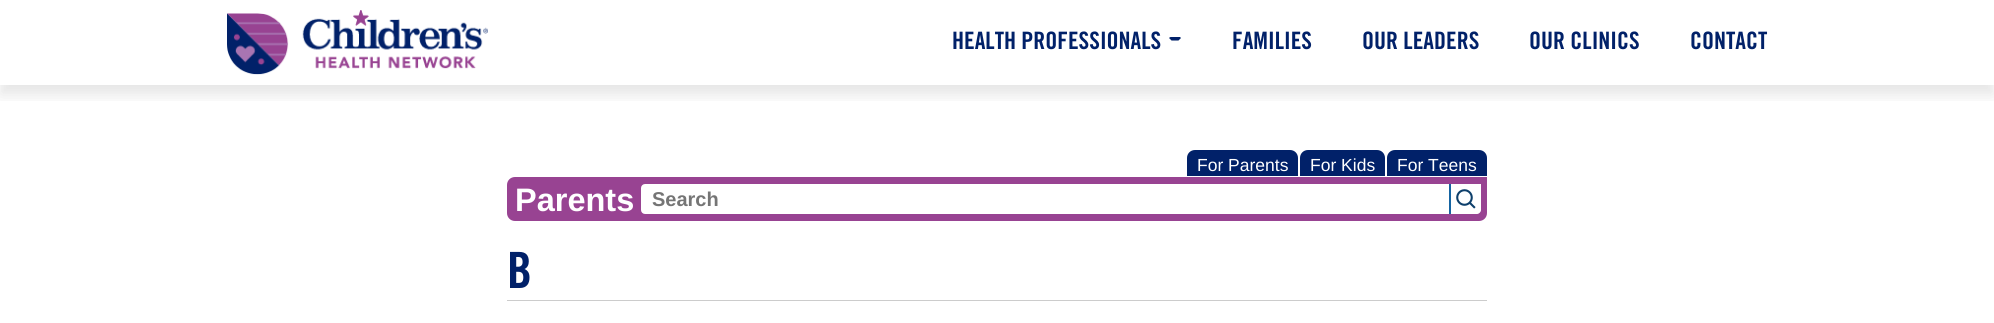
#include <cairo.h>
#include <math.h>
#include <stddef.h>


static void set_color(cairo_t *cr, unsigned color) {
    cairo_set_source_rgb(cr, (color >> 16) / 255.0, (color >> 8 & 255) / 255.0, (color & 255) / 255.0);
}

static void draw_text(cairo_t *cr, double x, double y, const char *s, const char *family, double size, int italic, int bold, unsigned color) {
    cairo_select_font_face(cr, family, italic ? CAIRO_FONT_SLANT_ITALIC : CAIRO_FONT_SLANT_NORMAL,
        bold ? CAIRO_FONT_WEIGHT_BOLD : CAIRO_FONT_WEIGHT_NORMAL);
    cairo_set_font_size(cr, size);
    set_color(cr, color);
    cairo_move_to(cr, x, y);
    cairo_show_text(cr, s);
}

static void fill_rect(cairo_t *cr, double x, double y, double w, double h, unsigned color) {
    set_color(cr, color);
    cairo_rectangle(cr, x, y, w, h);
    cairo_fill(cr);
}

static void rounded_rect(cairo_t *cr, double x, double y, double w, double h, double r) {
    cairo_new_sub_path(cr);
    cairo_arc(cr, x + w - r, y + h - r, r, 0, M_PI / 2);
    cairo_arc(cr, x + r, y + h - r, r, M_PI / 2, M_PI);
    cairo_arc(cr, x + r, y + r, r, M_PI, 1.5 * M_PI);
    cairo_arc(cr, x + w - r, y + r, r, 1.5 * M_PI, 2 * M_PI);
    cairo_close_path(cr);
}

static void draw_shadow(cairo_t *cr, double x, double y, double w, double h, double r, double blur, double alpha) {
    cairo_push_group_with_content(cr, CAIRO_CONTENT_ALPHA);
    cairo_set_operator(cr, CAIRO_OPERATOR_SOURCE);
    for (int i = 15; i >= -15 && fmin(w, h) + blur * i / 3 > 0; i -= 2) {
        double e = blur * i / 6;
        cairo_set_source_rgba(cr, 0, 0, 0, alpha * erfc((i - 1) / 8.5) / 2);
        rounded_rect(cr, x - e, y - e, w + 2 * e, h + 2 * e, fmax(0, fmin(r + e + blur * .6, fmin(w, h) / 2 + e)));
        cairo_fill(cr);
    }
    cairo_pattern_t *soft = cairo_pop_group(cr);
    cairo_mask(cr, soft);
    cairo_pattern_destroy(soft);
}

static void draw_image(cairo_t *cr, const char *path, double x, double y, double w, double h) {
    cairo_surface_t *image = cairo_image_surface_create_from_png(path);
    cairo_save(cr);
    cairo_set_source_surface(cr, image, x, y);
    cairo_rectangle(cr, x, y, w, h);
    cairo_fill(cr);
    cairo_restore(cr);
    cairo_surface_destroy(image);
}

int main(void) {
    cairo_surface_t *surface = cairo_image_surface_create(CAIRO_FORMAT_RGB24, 1994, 323);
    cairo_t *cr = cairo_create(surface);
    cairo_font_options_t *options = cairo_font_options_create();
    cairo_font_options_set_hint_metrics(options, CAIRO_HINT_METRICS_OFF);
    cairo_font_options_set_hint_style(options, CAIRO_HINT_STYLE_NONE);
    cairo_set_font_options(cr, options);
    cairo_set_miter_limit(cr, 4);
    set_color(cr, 0xFFFFFF);
    cairo_paint(cr);
    cairo_save(cr);
    cairo_rectangle(cr, 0, 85, 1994, 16);
    cairo_clip(cr);
    set_color(cr, 0x000000);
    draw_shadow(cr, 0, 10, 1994, 85, 0, 7.5, 0.1);
    cairo_restore(cr);
    draw_image(cr, "assets/img1.png", 227, 10, 261, 65);
    draw_text(cr, 952, 49, "HEALTH PROFESSIONALS", "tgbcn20", 24, 0, 1, 0x012169);
    cairo_new_path(cr);
    cairo_move_to(cr, 1171, 37);
    cairo_line_to(cr, 1180, 37);
    cairo_line_to(cr, 1181, 38);
    cairo_line_to(cr, 1178.5, 40.5);
    cairo_line_to(cr, 1171.5, 40.5);
    cairo_line_to(cr, 1169, 38);
    cairo_curve_to(cr, 1169.5, 37.5, 1170, 37, 1171, 37);
    cairo_close_path(cr);
    cairo_fill(cr);
    draw_text(cr, 1232, 49, "FAMILIES", "tgbcn20", 24, 0, 1, 0x012169);
    draw_text(cr, 1362, 49, "OUR LEADERS", "tgbcn20", 24, 0, 1, 0x012169);
    draw_text(cr, 1529, 49, "OUR CLINICS", "tgbcn20", 24, 0, 1, 0x012169);
    draw_text(cr, 1690, 49, "CONTACT", "tgbcn20", 24, 0, 1, 0x012169);
    cairo_new_path(cr);
    cairo_move_to(cr, 1195, 150);
    cairo_line_to(cr, 1290, 150);
    cairo_curve_to(cr, 1294.5, 150, 1298, 153.5, 1298, 158);
    cairo_line_to(cr, 1298, 176);
    cairo_line_to(cr, 1187, 176);
    cairo_line_to(cr, 1187, 158);
    cairo_curve_to(cr, 1187, 153.5, 1190.5, 150, 1195, 150);
    cairo_close_path(cr);
    cairo_fill(cr);
    draw_text(cr, 1197, 171, "For Parents", "Liberation Sans", 17.5, 0, 0, 0xFFFFFF);
    set_color(cr, 0x012169);
    cairo_new_path(cr);
    cairo_move_to(cr, 1308, 150);
    cairo_line_to(cr, 1377, 150);
    cairo_curve_to(cr, 1381.5, 150, 1385, 153.5, 1385, 158);
    cairo_line_to(cr, 1385, 176);
    cairo_line_to(cr, 1300, 176);
    cairo_line_to(cr, 1300, 158);
    cairo_curve_to(cr, 1300, 153.5, 1303.5, 150, 1308, 150);
    cairo_close_path(cr);
    cairo_fill(cr);
    draw_text(cr, 1310, 171, "For Kids", "Liberation Sans", 17.5, 0, 0, 0xFFFFFF);
    set_color(cr, 0x012169);
    cairo_new_path(cr);
    cairo_move_to(cr, 1395, 150);
    cairo_line_to(cr, 1479, 150);
    cairo_curve_to(cr, 1483.5, 150, 1487, 153.5, 1487, 158);
    cairo_line_to(cr, 1487, 176);
    cairo_line_to(cr, 1387, 176);
    cairo_line_to(cr, 1387, 158);
    cairo_curve_to(cr, 1387, 153.5, 1390.5, 150, 1395, 150);
    cairo_close_path(cr);
    cairo_fill(cr);
    draw_text(cr, 1397, 171, "For Teens", "Liberation Sans", 17.5, 0, 0, 0xFFFFFF);
    set_color(cr, 0x984392);
    cairo_new_path(cr);
    cairo_move_to(cr, 515, 177);
    cairo_line_to(cr, 1487, 177);
    cairo_line_to(cr, 1487, 213);
    cairo_curve_to(cr, 1487, 217.5, 1483.5, 221, 1479, 221);
    cairo_line_to(cr, 515, 221);
    cairo_curve_to(cr, 510.5, 221, 507, 217.5, 507, 213);
    cairo_line_to(cr, 507, 185);
    cairo_curve_to(cr, 507, 180.5, 510.5, 177, 515, 177);
    cairo_close_path(cr);
    cairo_fill(cr);
    draw_text(cr, 515, 211, "Parents", "Liberation Sans", 32.5, 0, 1, 0xFFFFFF);
    cairo_new_path(cr);
    cairo_move_to(cr, 645, 187);
    cairo_line_to(cr, 1446, 187);
    cairo_line_to(cr, 1446, 211);
    cairo_line_to(cr, 645, 211);
    cairo_curve_to(cr, 644.5, 211, 644, 210.5, 644, 210);
    cairo_line_to(cr, 644, 188);
    cairo_curve_to(cr, 644, 187.5, 644.5, 187, 645, 187);
    cairo_close_path(cr);
    cairo_fill_preserve(cr);
    cairo_set_line_width(cr, 6);
    cairo_stroke(cr);
    draw_text(cr, 652, 206, "Search", "Liberation Sans", 20, 0, 1, 0x757575);
    fill_rect(cr, 1449, 184, 2, 30, 0x1564A2);
    set_color(cr, 0xFFFFFF);
    cairo_new_path(cr);
    cairo_move_to(cr, 1451, 184);
    cairo_line_to(cr, 1481, 184);
    cairo_line_to(cr, 1481, 210);
    cairo_curve_to(cr, 1481, 212, 1479, 214, 1477, 214);
    cairo_line_to(cr, 1451, 214);
    cairo_close_path(cr);
    cairo_fill(cr);
    draw_image(cr, "assets/img2.png", 1456, 189, 20, 20);
    fill_rect(cr, 507, 300, 980, 1, 0xCCCCCC);
    draw_text(cr, 507, 288, "B", "tgbcn20", 50, 0, 1, 0x012169);
    cairo_surface_write_to_png(surface, "output.png");
    cairo_font_options_destroy(options);
    cairo_destroy(cr);
    cairo_surface_destroy(surface);
    return 0;
}
